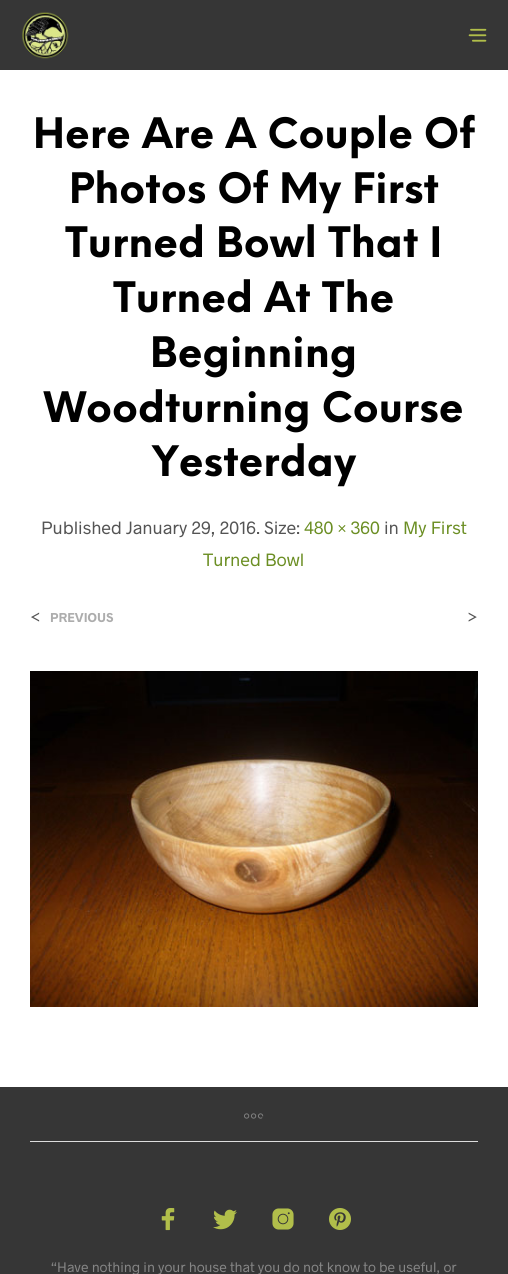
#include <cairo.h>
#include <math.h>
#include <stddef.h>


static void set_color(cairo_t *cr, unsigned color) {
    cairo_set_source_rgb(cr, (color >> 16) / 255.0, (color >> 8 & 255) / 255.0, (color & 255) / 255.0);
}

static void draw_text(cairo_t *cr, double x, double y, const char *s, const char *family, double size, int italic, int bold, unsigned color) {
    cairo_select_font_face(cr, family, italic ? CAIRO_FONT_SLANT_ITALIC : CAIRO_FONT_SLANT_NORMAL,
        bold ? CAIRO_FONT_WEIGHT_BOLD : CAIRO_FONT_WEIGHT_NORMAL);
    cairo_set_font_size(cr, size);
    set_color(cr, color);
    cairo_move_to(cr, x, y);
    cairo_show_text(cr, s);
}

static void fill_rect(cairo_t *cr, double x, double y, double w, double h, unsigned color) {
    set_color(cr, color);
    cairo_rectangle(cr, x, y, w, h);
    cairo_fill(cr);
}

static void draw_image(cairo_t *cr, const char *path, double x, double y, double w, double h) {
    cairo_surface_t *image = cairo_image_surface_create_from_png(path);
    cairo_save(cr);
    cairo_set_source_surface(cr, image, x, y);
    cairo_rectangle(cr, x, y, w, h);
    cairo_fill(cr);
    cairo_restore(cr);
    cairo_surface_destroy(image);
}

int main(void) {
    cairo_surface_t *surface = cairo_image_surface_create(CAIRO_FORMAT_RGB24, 508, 1274);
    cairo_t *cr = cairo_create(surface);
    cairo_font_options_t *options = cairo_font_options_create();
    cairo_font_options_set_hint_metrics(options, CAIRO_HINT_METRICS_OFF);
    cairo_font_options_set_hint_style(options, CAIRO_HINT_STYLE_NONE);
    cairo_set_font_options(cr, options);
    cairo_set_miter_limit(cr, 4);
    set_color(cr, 0xFFFFFF);
    cairo_paint(cr);
    fill_rect(cr, 0, 0, 508, 70, 0x363636);
    draw_image(cr, "assets/img1.png", 22, 12, 47, 47);
    draw_image(cr, "assets/img2.png", 468, 28, 19, 14);
    draw_text(cr, 33, 148, "Here Are A Couple Of", "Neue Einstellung", 41, 0, 1, 0x000000);
    draw_text(cr, 69, 203, "Photos Of My First", "Neue Einstellung", 41, 0, 1, 0x000000);
    draw_text(cr, 65, 257, "Turned Bowl That I", "Neue Einstellung", 41, 0, 1, 0x000000);
    draw_text(cr, 113, 312, "Turned At The", "Neue Einstellung", 41, 0, 1, 0x000000);
    draw_text(cr, 150, 367, "Beginning", "Neue Einstellung", 41, 0, 1, 0x000000);
    draw_text(cr, 44, 422, "Woodturning Course", "Neue Einstellung", 41, 0, 1, 0x000000);
    draw_text(cr, 152, 476, "Yesterday", "Neue Einstellung", 41, 0, 1, 0x000000);
    draw_text(cr, 41, 534, "Published January 29, 2016. Size:", "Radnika", 18, 0, 0, 0x545454);
    draw_text(cr, 304, 534, "480 × 360", "Radnika", 18, 0, 0, 0x6B8E23);
    draw_text(cr, 384, 534, "in", "Radnika", 18, 0, 0, 0x545454);
    draw_text(cr, 403, 534, "My First", "Radnika", 18, 0, 0, 0x6B8E23);
    draw_text(cr, 203, 566, "Turned Bowl", "Radnika", 18, 0, 0, 0x6B8E23);
    draw_text(cr, 30, 623, "<", "Radnika", 18, 0, 0, 0x545454);
    draw_text(cr, 50, 622, "PREVIOUS", "Radnika", 13, 0, 1, 0xADADAD);
    draw_text(cr, 467, 623, ">", "Radnika", 18, 0, 0, 0x545454);
    draw_image(cr, "assets/img3.png", 30, 671, 448, 336);
    fill_rect(cr, 0, 1087, 508, 187, 0x363636);
    fill_rect(cr, 30, 1141, 448, 1, 0xDDDDDD);
    draw_image(cr, "assets/img4.png", 244, 1113, 20, 6);
    draw_image(cr, "assets/img5.png", 161, 1208, 14, 23);
    draw_image(cr, "assets/img6.png", 213, 1209, 24, 21);
    draw_image(cr, "assets/img7.png", 272, 1208, 22, 22);
    draw_image(cr, "assets/img8.png", 329, 1208, 22, 22);
    draw_text(cr, 51, 1272, "“Have nothing in your house that you do not know to be useful, or", "Radnika", 14, 0, 0, 0x868686);
    cairo_surface_write_to_png(surface, "output.png");
    cairo_font_options_destroy(options);
    cairo_destroy(cr);
    cairo_surface_destroy(surface);
    return 0;
}
